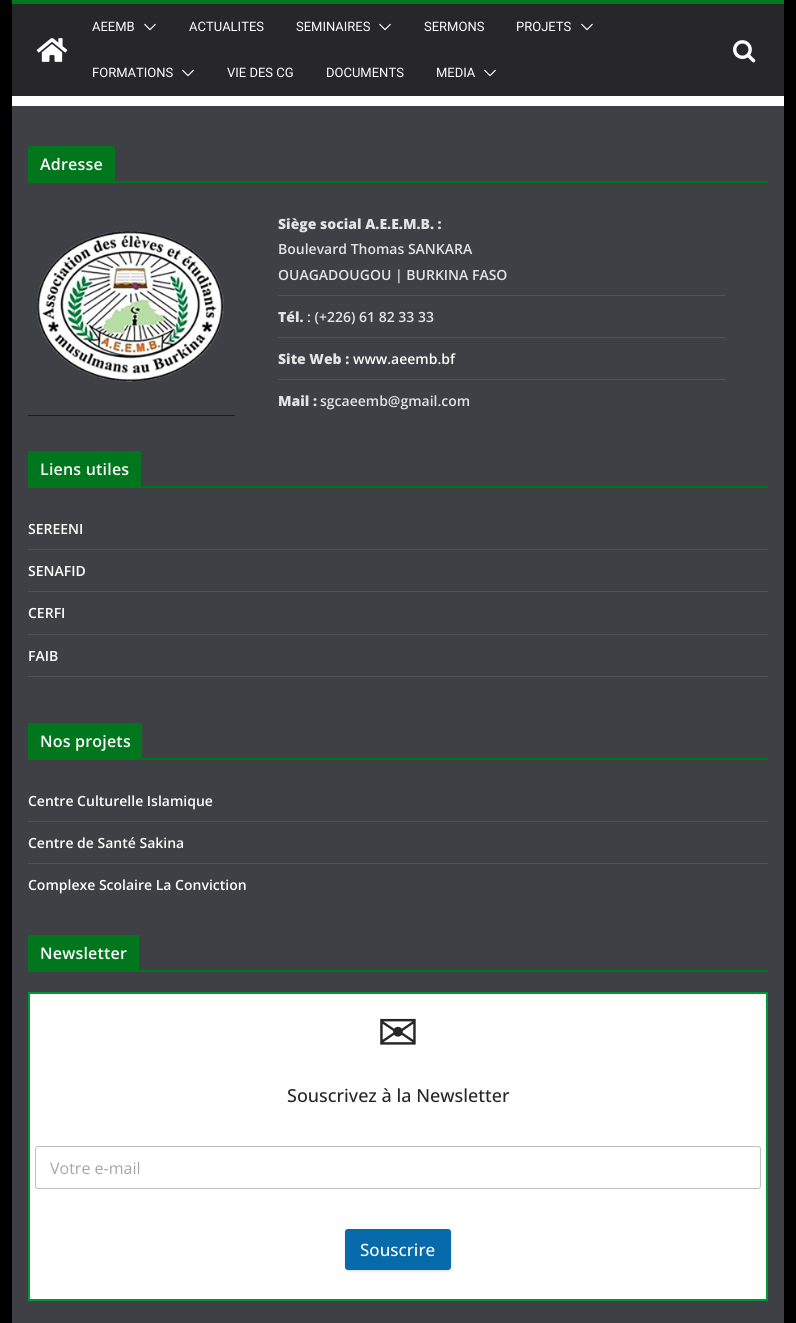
#include <cairo.h>
#include <math.h>
#include <stddef.h>


static void set_color(cairo_t *cr, unsigned color) {
    cairo_set_source_rgb(cr, (color >> 16) / 255.0, (color >> 8 & 255) / 255.0, (color & 255) / 255.0);
}

static void draw_text(cairo_t *cr, double x, double y, const char *s, const char *family, double size, int italic, int bold, unsigned color) {
    cairo_select_font_face(cr, family, italic ? CAIRO_FONT_SLANT_ITALIC : CAIRO_FONT_SLANT_NORMAL,
        bold ? CAIRO_FONT_WEIGHT_BOLD : CAIRO_FONT_WEIGHT_NORMAL);
    cairo_set_font_size(cr, size);
    set_color(cr, color);
    cairo_move_to(cr, x, y);
    cairo_show_text(cr, s);
}

static void draw_spaced(cairo_t *cr, double x, double y, const char *s, double letter, double word) {
    cairo_move_to(cr, x, y);
    while (*s) {
        char ch[5] = {0};
        int n = 0;
        do ch[n++] = *s++; while ((*s & 0xC0) == 0x80);
        cairo_show_text(cr, ch);
        cairo_rel_move_to(cr, letter + word * (*ch == ' '), 0);
    }
}

static void fill_rect(cairo_t *cr, double x, double y, double w, double h, unsigned color) {
    set_color(cr, color);
    cairo_rectangle(cr, x, y, w, h);
    cairo_fill(cr);
}

static void rounded_rect(cairo_t *cr, double x, double y, double w, double h, double r) {
    cairo_new_sub_path(cr);
    cairo_arc(cr, x + w - r, y + h - r, r, 0, M_PI / 2);
    cairo_arc(cr, x + r, y + h - r, r, M_PI / 2, M_PI);
    cairo_arc(cr, x + r, y + r, r, M_PI, 1.5 * M_PI);
    cairo_arc(cr, x + w - r, y + r, r, 1.5 * M_PI, 2 * M_PI);
    cairo_close_path(cr);
}

static void draw_shadow(cairo_t *cr, double x, double y, double w, double h, double r, double blur, double alpha) {
    cairo_push_group_with_content(cr, CAIRO_CONTENT_ALPHA);
    cairo_set_operator(cr, CAIRO_OPERATOR_SOURCE);
    for (int i = 15; i >= -15 && fmin(w, h) + blur * i / 3 > 0; i -= 2) {
        double e = blur * i / 6;
        cairo_set_source_rgba(cr, 0, 0, 0, alpha * erfc((i - 1) / 8.5) / 2);
        rounded_rect(cr, x - e, y - e, w + 2 * e, h + 2 * e, fmax(0, fmin(r + e + blur * .6, fmin(w, h) / 2 + e)));
        cairo_fill(cr);
    }
    cairo_pattern_t *soft = cairo_pop_group(cr);
    cairo_mask(cr, soft);
    cairo_pattern_destroy(soft);
}

static void draw_image(cairo_t *cr, const char *path, double x, double y, double w, double h) {
    cairo_surface_t *image = cairo_image_surface_create_from_png(path);
    cairo_save(cr);
    cairo_set_source_surface(cr, image, x, y);
    cairo_rectangle(cr, x, y, w, h);
    cairo_fill(cr);
    cairo_restore(cr);
    cairo_surface_destroy(image);
}

int main(void) {
    cairo_surface_t *surface = cairo_image_surface_create(CAIRO_FORMAT_RGB24, 796, 1323);
    cairo_t *cr = cairo_create(surface);
    cairo_font_options_t *options = cairo_font_options_create();
    cairo_font_options_set_hint_metrics(options, CAIRO_HINT_METRICS_OFF);
    cairo_font_options_set_hint_style(options, CAIRO_HINT_STYLE_NONE);
    cairo_set_font_options(cr, options);
    cairo_set_miter_limit(cr, 4);
    set_color(cr, 0x000000);
    cairo_paint(cr);
    fill_rect(cr, 12, 4, 772, 92, 0x27272A);
    fill_rect(cr, 12, 0, 772, 4, 0x00761D);
    draw_image(cr, "assets/img1.png", 36, 38, 32, 24);
    draw_text(cr, 92, 31, "AEEMB", "Roboto", 13, 0, 0, 0xFFFFFF);
    draw_image(cr, "assets/img2.png", 144, 23, 12, 8);
    draw_text(cr, 189, 31, "ACTUALITES", "Roboto", 13, 0, 0, 0xFFFFFF);
    draw_text(cr, 296, 31, "SEMINAIRES", "Roboto", 13, 0, 0, 0xFFFFFF);
    draw_image(cr, "assets/img2.png", 379, 23, 12, 8);
    draw_text(cr, 424, 31, "SERMONS", "Roboto", 13, 0, 0, 0xFFFFFF);
    draw_text(cr, 516, 31, "PROJETS", "Roboto", 13, 0, 0, 0xFFFFFF);
    draw_image(cr, "assets/img2.png", 581, 23, 12, 8);
    draw_text(cr, 92, 77, "FORMATIONS", "Roboto", 13, 0, 0, 0xFFFFFF);
    draw_image(cr, "assets/img2.png", 182, 69, 12, 8);
    draw_text(cr, 227, 77, "VIE DES CG", "Roboto", 13, 0, 0, 0xFFFFFF);
    draw_text(cr, 326, 77, "DOCUMENTS", "Roboto", 13, 0, 0, 0xFFFFFF);
    draw_text(cr, 436, 77, "MEDIA", "Roboto", 13, 0, 0, 0xFFFFFF);
    draw_image(cr, "assets/img2.png", 484, 69, 12, 8);
    draw_image(cr, "assets/img3.png", 733, 40, 23, 23);
    fill_rect(cr, 12, 96, 772, 10, 0xFFFFFF);
    fill_rect(cr, 12, 106, 772, 1217, 0x3F3F46);
    fill_rect(cr, 28, 181, 740, 2, 0x00761D);
    cairo_new_path(cr);
    cairo_move_to(cr, 30, 146);
    cairo_line_to(cr, 113, 146);
    cairo_curve_to(cr, 114, 146, 115, 147, 115, 148);
    cairo_line_to(cr, 115, 181);
    cairo_line_to(cr, 28, 181);
    cairo_line_to(cr, 28, 148);
    cairo_curve_to(cr, 28, 147, 29, 146, 30, 146);
    cairo_close_path(cr);
    cairo_fill(cr);
    cairo_select_font_face(cr, "Open Sans SemiBold", CAIRO_FONT_SLANT_NORMAL, CAIRO_FONT_WEIGHT_NORMAL);
    cairo_set_font_size(cr, 16);
    set_color(cr, 0xFFFFFF);
    draw_spaced(cr, 40, 170, "Adresse", 0.2, 0);
    draw_image(cr, "assets/img4.png", 28, 231, 207, 185);
    fill_rect(cr, 278, 295, 447, 1, 0x52525B);
    draw_text(cr, 278, 229, "Siège social A.E.E.M.B. :", "Open Sans ExtraBold", 14, 0, 0, 0xE4E4E7);
    draw_text(cr, 278, 254, "Boulevard Thomas SANKARA", "Open Sans SemiBold", 14, 0, 0, 0xE4E4E7);
    draw_text(cr, 278, 280, "OUAGADOUGOU | BURKINA FASO", "Open Sans SemiBold", 14, 0, 0, 0xE4E4E7);
    fill_rect(cr, 278, 337, 447, 1, 0x52525B);
    draw_text(cr, 278, 322, "Tél.", "Open Sans ExtraBold", 14, 0, 0, 0xE4E4E7);
    draw_text(cr, 307, 322, ": (+226) 61 82 33 33", "Open Sans SemiBold", 14, 0, 0, 0xE4E4E7);
    fill_rect(cr, 278, 379, 447, 1, 0x52525B);
    draw_text(cr, 278, 364, "Site Web :", "Open Sans ExtraBold", 14, 0, 0, 0xE4E4E7);
    draw_text(cr, 353, 364, "www.aeemb.bf", "Open Sans SemiBold", 14, 0, 0, 0xFFFFFF);
    draw_text(cr, 278, 406, "Mail :", "Open Sans ExtraBold", 14, 0, 0, 0xE4E4E7);
    draw_text(cr, 320, 406, "sgcaeemb@gmail.com", "Open Sans SemiBold", 14, 0, 0, 0xE4E4E7);
    fill_rect(cr, 28, 486, 740, 2, 0x00761D);
    cairo_new_path(cr);
    cairo_move_to(cr, 30, 451);
    cairo_line_to(cr, 139, 451);
    cairo_curve_to(cr, 140, 451, 141, 452, 141, 453);
    cairo_line_to(cr, 141, 486);
    cairo_line_to(cr, 28, 486);
    cairo_line_to(cr, 28, 453);
    cairo_curve_to(cr, 28, 452, 29, 451, 30, 451);
    cairo_close_path(cr);
    cairo_fill(cr);
    cairo_set_font_size(cr, 16);
    set_color(cr, 0xFFFFFF);
    draw_spaced(cr, 40, 475, "Liens utiles", 0.2, 0);
    fill_rect(cr, 28, 549, 740, 1, 0x52525B);
    draw_text(cr, 28, 534, "SEREENI", "Open Sans SemiBold", 14, 0, 0, 0xFFFFFF);
    fill_rect(cr, 28, 591, 740, 1, 0x52525B);
    draw_text(cr, 28, 576, "SENAFID", "Open Sans SemiBold", 14, 0, 0, 0xFFFFFF);
    fill_rect(cr, 28, 634, 740, 1, 0x52525B);
    draw_text(cr, 28, 618, "CERFI", "Open Sans SemiBold", 14, 0, 0, 0xFFFFFF);
    fill_rect(cr, 28, 676, 740, 1, 0x52525B);
    draw_text(cr, 28, 661, "FAIB", "Open Sans SemiBold", 14, 0, 0, 0xFFFFFF);
    fill_rect(cr, 28, 758, 740, 2, 0x00761D);
    cairo_new_path(cr);
    cairo_move_to(cr, 30, 723);
    cairo_line_to(cr, 140, 723);
    cairo_curve_to(cr, 141, 723, 142, 724, 142, 725);
    cairo_line_to(cr, 142, 758);
    cairo_line_to(cr, 28, 758);
    cairo_line_to(cr, 28, 725);
    cairo_curve_to(cr, 28, 724, 29, 723, 30, 723);
    cairo_close_path(cr);
    cairo_fill(cr);
    cairo_set_font_size(cr, 16);
    set_color(cr, 0xFFFFFF);
    draw_spaced(cr, 40, 747, "Nos projets", 0.2, 0);
    fill_rect(cr, 28, 821, 740, 1, 0x52525B);
    draw_text(cr, 28, 806, "Centre Culturelle Islamique", "Open Sans SemiBold", 14, 0, 0, 0xFFFFFF);
    fill_rect(cr, 28, 863, 740, 1, 0x52525B);
    draw_text(cr, 28, 848, "Centre de Santé Sakina", "Open Sans SemiBold", 14, 0, 0, 0xFFFFFF);
    draw_text(cr, 28, 890, "Complexe Scolaire La Conviction", "Open Sans SemiBold", 14, 0, 0, 0xFFFFFF);
    fill_rect(cr, 28, 970, 740, 2, 0x00761D);
    cairo_new_path(cr);
    cairo_move_to(cr, 30, 935);
    cairo_line_to(cr, 137, 935);
    cairo_curve_to(cr, 138, 935, 139, 936, 139, 937);
    cairo_line_to(cr, 139, 970);
    cairo_line_to(cr, 28, 970);
    cairo_line_to(cr, 28, 937);
    cairo_curve_to(cr, 28, 936, 29, 935, 30, 935);
    cairo_close_path(cr);
    cairo_fill(cr);
    cairo_set_font_size(cr, 16);
    set_color(cr, 0xFFFFFF);
    draw_spaced(cr, 40, 959, "Newsletter", 0.2, 0);
    cairo_rectangle(cr, 29, 993, 738, 307);
    cairo_fill_preserve(cr);
    set_color(cr, 0x009636);
    cairo_stroke(cr);
    draw_text(cr, 377, 1050, "✉", "DejaVu Sans", 50, 0, 0, 0x27272A);
    draw_text(cr, 287, 1102, "Souscrivez à la Newsletter", "Open Sans Medium", 18, 0, 0, 0x27272A);
    rounded_rect(cr, 35.5, 1146.5, 725, 42, 2.5);
    set_color(cr, 0xBFBFBF);
    cairo_set_line_width(cr, 1);
    cairo_stroke(cr);
    draw_text(cr, 50, 1174, "Votre e-mail", "Open Sans", 16, 0, 0, 0xA6A6A6);
    set_color(cr, 0x000000);
    draw_shadow(cr, 345, 1230, 106, 41, 3, 1, 0.15);
    set_color(cr, 0x066AAB);
    rounded_rect(cr, 345, 1229, 106, 41, 3);
    cairo_fill(cr);
    draw_text(cr, 360, 1256, "Souscrire", "Open Sans Medium", 17, 0, 0, 0xFFFFFF);
    cairo_surface_write_to_png(surface, "output.png");
    cairo_font_options_destroy(options);
    cairo_destroy(cr);
    cairo_surface_destroy(surface);
    return 0;
}
